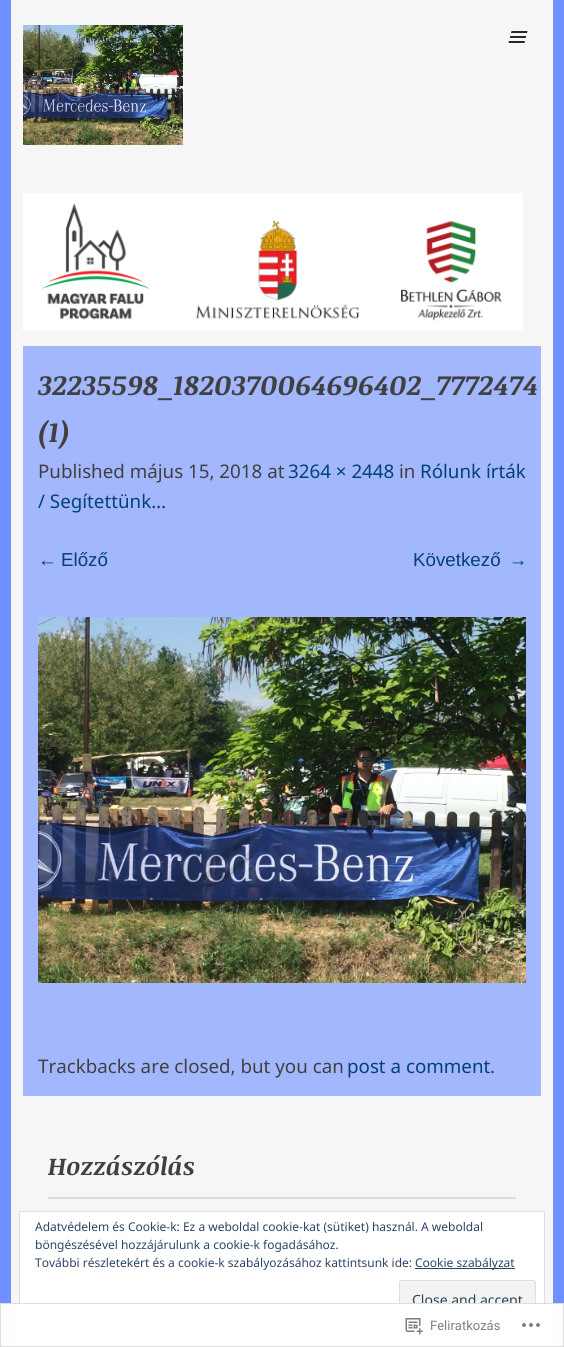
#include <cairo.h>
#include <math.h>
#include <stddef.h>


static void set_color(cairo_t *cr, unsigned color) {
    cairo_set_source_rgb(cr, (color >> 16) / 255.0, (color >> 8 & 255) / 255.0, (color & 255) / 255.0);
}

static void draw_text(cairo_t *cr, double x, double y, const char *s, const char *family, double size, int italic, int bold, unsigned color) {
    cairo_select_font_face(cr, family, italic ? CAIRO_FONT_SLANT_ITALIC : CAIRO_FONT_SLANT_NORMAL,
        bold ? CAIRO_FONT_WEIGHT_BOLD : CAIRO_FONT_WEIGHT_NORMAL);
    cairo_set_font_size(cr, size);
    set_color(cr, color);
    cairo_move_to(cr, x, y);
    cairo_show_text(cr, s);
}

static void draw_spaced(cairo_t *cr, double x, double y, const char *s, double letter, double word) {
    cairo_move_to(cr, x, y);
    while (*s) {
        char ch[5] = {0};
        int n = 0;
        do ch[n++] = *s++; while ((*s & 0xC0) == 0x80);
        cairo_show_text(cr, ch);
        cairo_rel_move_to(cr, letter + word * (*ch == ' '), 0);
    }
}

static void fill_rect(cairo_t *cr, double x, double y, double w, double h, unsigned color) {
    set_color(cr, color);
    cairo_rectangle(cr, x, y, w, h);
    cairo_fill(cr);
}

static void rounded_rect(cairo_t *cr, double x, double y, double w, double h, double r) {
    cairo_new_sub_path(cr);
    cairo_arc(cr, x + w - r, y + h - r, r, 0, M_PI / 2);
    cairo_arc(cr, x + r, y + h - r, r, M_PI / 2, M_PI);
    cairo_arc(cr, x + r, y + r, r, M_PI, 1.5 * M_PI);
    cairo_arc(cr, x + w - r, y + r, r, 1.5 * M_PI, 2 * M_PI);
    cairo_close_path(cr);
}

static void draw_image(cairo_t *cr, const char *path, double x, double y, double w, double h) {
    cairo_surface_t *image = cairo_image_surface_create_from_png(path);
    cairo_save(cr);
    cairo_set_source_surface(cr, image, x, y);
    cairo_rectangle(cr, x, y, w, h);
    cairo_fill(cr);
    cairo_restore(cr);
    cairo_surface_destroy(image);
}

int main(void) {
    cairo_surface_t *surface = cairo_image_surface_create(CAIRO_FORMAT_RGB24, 564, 1347);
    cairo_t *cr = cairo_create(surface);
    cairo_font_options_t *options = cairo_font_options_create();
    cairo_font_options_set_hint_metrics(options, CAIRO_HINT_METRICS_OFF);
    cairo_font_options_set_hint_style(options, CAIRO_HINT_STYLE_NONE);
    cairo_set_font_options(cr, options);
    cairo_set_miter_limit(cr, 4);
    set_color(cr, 0x7090FF);
    cairo_paint(cr);
    fill_rect(cr, 11, 0, 542, 1347, 0xF6F6F6);
    draw_image(cr, "assets/img1.png", 23, 25, 160, 120);
    draw_image(cr, "assets/img2.png", 508, 31, 20, 12);
    draw_image(cr, "assets/img3.png", 23, 193, 500, 138);
    fill_rect(cr, 23, 346, 518, 750, 0xA3B7FE);
    draw_text(cr, 38, 395, "32235598_1820370064696402_7772474", "Noticia Text", 28.1, 1, 1, 0x404040);
    draw_text(cr, 38, 442, "(1)", "Noticia Text", 28.1, 1, 1, 0x404040);
    draw_text(cr, 38, 478, "Published május 15, 2018 at", "Noto Sans", 18.75, 0, 0, 0x404040);
    draw_text(cr, 288, 478, "3264 × 2448", "Noto Sans", 18.75, 0, 0, 0x004178);
    draw_text(cr, 399, 478, "in", "Noto Sans", 18.75, 0, 0, 0x404040);
    draw_text(cr, 420, 478, "Rólunk írták", "Noto Sans", 18.75, 0, 0, 0x004178);
    draw_text(cr, 38, 508, "/ Segítettünk…", "Noto Sans", 18.75, 0, 0, 0x004178);
    cairo_select_font_face(cr, "Liberation Sans", CAIRO_FONT_SLANT_NORMAL, CAIRO_FONT_WEIGHT_NORMAL);
    draw_spaced(cr, 38, 566, "← Előző", 0, -1);
    draw_spaced(cr, 413, 566, "Következő →", 0, 3);
    draw_image(cr, "assets/img4.png", 38, 617, 488, 366);
    draw_text(cr, 38, 1073, "Trackbacks are closed, but you can", "Noto Sans", 18.75, 0, 0, 0x404040);
    draw_text(cr, 347, 1073, "post a comment", "Noto Sans", 18.75, 0, 0, 0x004178);
    draw_text(cr, 490, 1073, ".", "Noto Sans", 18.75, 0, 0, 0x404040);
    draw_text(cr, 48, 1175, "Hozzászólás", "Noticia Text", 24.5, 1, 1, 0x404040);
    fill_rect(cr, 48, 1197, 468, 2, 0xDCDCDE);
    set_color(cr, 0xFFFFFF);
    cairo_rectangle(cr, 19.5, 1211.5, 525, 116);
    cairo_fill_preserve(cr);
    set_color(cr, 0xDEDEDE);
    cairo_set_line_width(cr, 1);
    cairo_stroke(cr);
    draw_text(cr, 35, 1231, "Adatvédelem és Cookie-k: Ez a weboldal cookie-kat (sütiket) használ. A weboldal", "Noto Sans", 12, 0, 0, 0x2E4467);
    draw_text(cr, 35, 1249, "böngészésével hozzájárulunk a cookie-k fogadásához.", "Noto Sans", 12, 0, 0, 0x2E4467);
    draw_text(cr, 35, 1267, "További részletekért és a cookie-k szabályozásához kattintsunk ide:", "Noto Sans", 12, 0, 0, 0x2E4467);
    fill_rect(cr, 415, 1268, 100, 1, 0x2E4467);
    draw_text(cr, 415, 1267, "Cookie szabályzat", "Noto Sans", 12, 0, 0, 0x2E4467);
    set_color(cr, 0xF3F3F3);
    rounded_rect(cr, 399, 1280, 137, 39, 3);
    cairo_fill(cr);
    set_color(cr, 0xF9F9F9);
    cairo_new_path(cr);
    cairo_move_to(cr, 402, 1282);
    cairo_line_to(cr, 533, 1282);
    cairo_curve_to(cr, 534, 1282, 535, 1283, 535, 1284);
    cairo_curve_to(cr, 535, 1283, 535, 1281, 533, 1281);
    cairo_line_to(cr, 402, 1281);
    cairo_curve_to(cr, 400, 1281, 400, 1283, 400, 1284);
    cairo_curve_to(cr, 400, 1283, 401, 1282, 402, 1282);
    cairo_close_path(cr);
    cairo_fill(cr);
    rounded_rect(cr, 399.5, 1280.5, 136, 38, 2.5);
    set_color(cr, 0xDEDEDE);
    cairo_stroke(cr);
    draw_text(cr, 412, 1305, "Close and accept", "Noto Sans", 14, 0, 0, 0x2E4453);
    cairo_set_source_rgba(cr, 1, 1, 1, 0.98);
    cairo_rectangle(cr, 0, 1303, 564, 44);
    cairo_fill(cr);
    cairo_rectangle(cr, 0.5, 1303.5, 563, 43);
    cairo_set_source_rgba(cr, 0.863, 0.863, 0.871, 0.98);
    cairo_stroke(cr);
    draw_image(cr, "assets/img5.png", 405, 1318, 18, 17);
    draw_text(cr, 430, 1330, "Feliratkozás", "Roboto", 13, 0, 0, 0x7B7F84);
    draw_image(cr, "assets/img6.png", 522, 1323, 18, 4);
    cairo_surface_write_to_png(surface, "output.png");
    cairo_font_options_destroy(options);
    cairo_destroy(cr);
    cairo_surface_destroy(surface);
    return 0;
}
